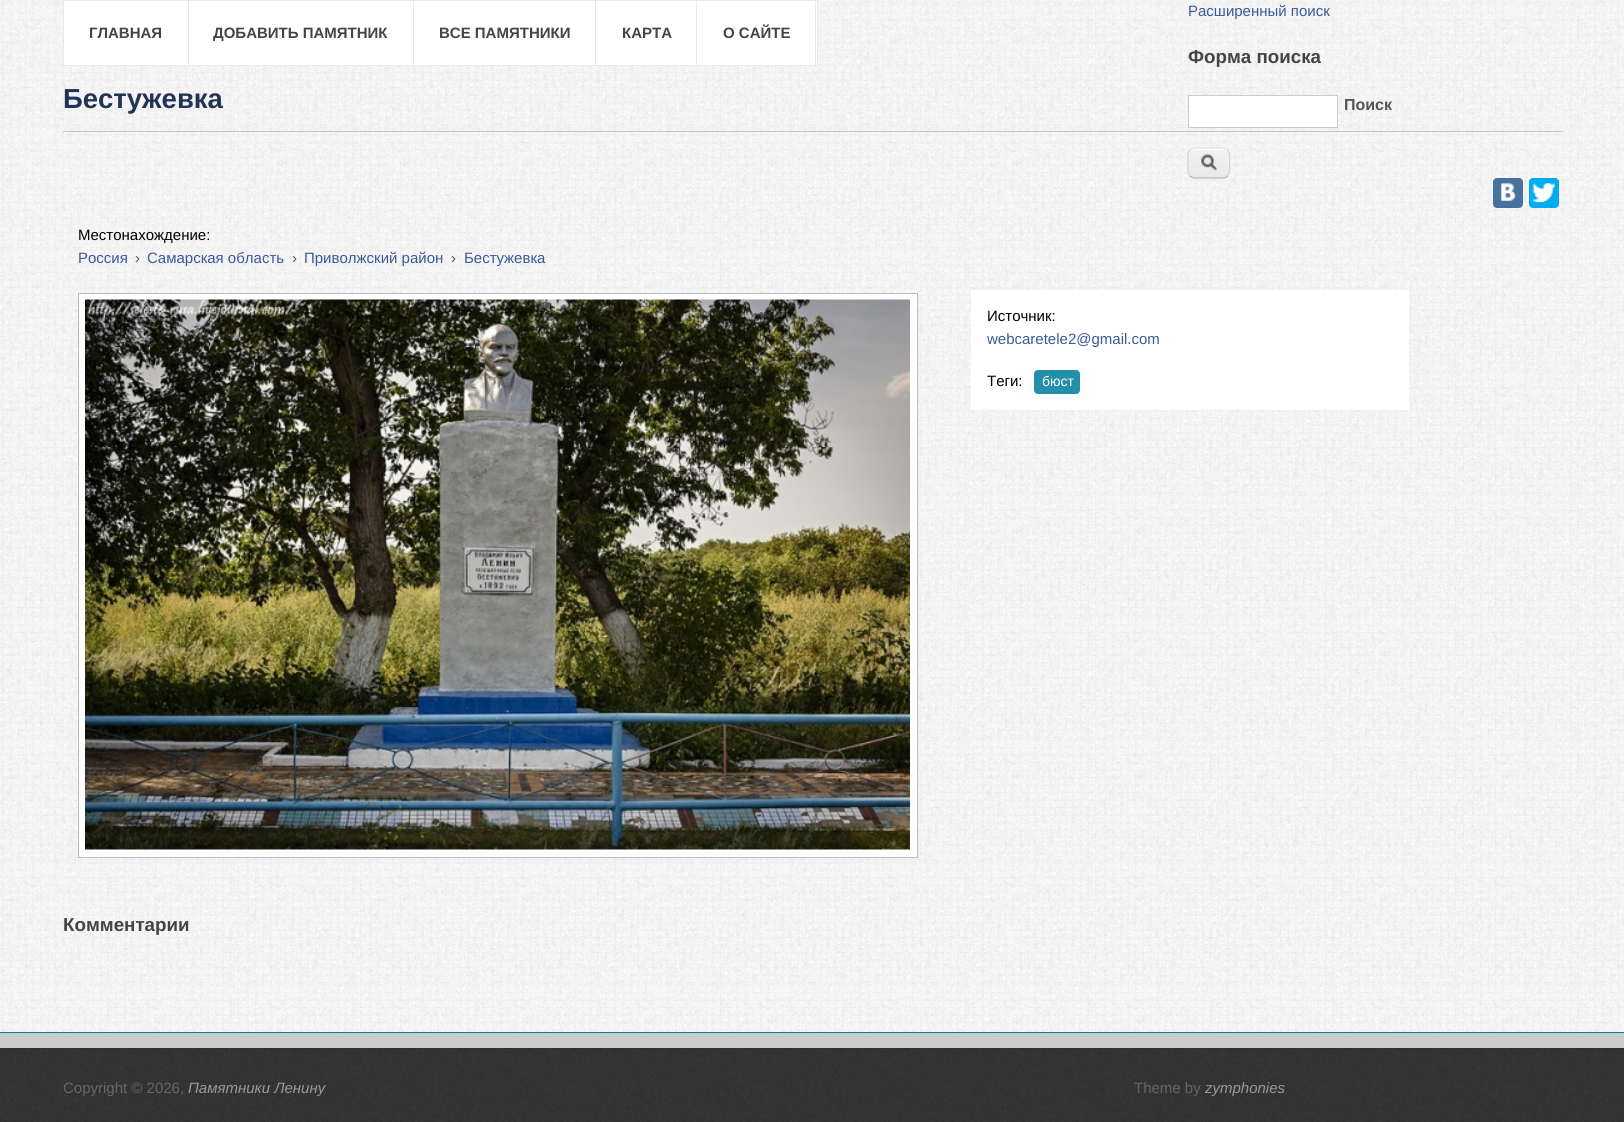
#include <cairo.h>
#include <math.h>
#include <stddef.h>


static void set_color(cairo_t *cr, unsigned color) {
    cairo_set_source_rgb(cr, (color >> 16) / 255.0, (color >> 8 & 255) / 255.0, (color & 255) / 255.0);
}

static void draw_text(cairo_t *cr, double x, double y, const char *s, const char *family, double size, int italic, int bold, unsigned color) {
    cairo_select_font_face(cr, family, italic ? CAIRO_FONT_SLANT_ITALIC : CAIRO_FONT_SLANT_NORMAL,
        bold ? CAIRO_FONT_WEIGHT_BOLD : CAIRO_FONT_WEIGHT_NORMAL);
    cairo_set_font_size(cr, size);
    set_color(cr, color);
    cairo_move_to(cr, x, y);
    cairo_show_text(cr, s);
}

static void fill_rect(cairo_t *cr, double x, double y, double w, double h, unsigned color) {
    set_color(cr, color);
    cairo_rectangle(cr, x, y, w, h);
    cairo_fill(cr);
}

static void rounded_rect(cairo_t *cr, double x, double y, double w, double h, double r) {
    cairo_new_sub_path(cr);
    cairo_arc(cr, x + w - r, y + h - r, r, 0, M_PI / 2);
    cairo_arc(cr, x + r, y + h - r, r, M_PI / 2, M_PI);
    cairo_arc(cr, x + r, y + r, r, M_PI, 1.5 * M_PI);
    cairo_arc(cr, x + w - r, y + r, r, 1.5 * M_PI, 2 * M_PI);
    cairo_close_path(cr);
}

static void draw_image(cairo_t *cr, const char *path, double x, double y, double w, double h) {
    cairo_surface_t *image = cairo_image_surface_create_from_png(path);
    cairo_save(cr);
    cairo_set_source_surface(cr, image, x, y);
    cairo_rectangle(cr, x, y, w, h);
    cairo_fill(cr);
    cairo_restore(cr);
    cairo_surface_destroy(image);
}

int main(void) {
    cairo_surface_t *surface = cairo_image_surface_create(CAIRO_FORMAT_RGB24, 1624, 1122);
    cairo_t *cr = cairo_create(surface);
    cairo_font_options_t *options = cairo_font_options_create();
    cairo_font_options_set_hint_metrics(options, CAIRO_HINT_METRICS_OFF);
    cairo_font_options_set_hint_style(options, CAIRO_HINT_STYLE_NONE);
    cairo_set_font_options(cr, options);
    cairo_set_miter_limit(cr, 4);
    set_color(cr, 0xFFFFFF);
    cairo_paint(cr);
    draw_image(cr, "assets/img1.png", 0, 0, 1624, 1032);
    set_color(cr, 0xFFFFFF);
    cairo_rectangle(cr, 63.5, 0.5, 754, 65);
    cairo_fill_preserve(cr);
    set_color(cr, 0xE9E9E9);
    cairo_set_line_width(cr, 1);
    cairo_stroke(cr);
    fill_rect(cr, 188, 1, 1, 64, 0xE9E9E9);
    draw_text(cr, 89, 38, "ГЛАВНАЯ", "Liberation Sans", 15, 0, 1, 0x444444);
    fill_rect(cr, 413, 1, 1, 64, 0xE9E9E9);
    draw_text(cr, 213, 38, "ДОБАВИТЬ ПАМЯТНИК", "Liberation Sans", 15, 0, 1, 0x444444);
    fill_rect(cr, 595, 1, 1, 64, 0xE9E9E9);
    draw_text(cr, 439, 38, "ВСЕ ПАМЯТНИКИ", "Liberation Sans", 15, 0, 1, 0x444444);
    fill_rect(cr, 696, 1, 1, 64, 0xE9E9E9);
    draw_text(cr, 622, 38, "КАРТА", "Liberation Sans", 15, 0, 1, 0x444444);
    fill_rect(cr, 815, 1, 1, 64, 0xE9E9E9);
    draw_text(cr, 723, 38, "О САЙТЕ", "Liberation Sans", 15, 0, 1, 0x444444);
    draw_text(cr, 1188, 16, "Расширенный поиск", "Liberation Sans", 15, 0, 0, 0x3B5998);
    draw_text(cr, 1188, 63, "Форма поиска", "Liberation Sans", 18.75, 0, 1, 0x444444);
    set_color(cr, 0xFFFFFF);
    cairo_rectangle(cr, 1188.5, 95.5, 149, 32);
    cairo_fill_preserve(cr);
    set_color(cr, 0xCCCCCC);
    cairo_stroke(cr);
    draw_text(cr, 1344, 110, "Поиск", "Liberation Sans", 16, 0, 1, 0x555555);
    draw_image(cr, "assets/img2.png", 1188, 148, 42, 30);
    set_color(cr, 0xFFFFFF);
    cairo_set_fill_rule(cr, CAIRO_FILL_RULE_EVEN_ODD);
    cairo_new_path(cr);
    cairo_move_to(cr, 1195, 150);
    cairo_line_to(cr, 1218, 150);
    cairo_curve_to(cr, 1227, 150, 1229, 152, 1229, 158);
    cairo_curve_to(cr, 1229, 150, 1226, 149, 1218, 149);
    cairo_line_to(cr, 1200, 149);
    cairo_curve_to(cr, 1195, 149, 1189, 149, 1189, 155);
    cairo_curve_to(cr, 1190, 152, 1191, 150, 1195, 150);
    cairo_close_path(cr);
    cairo_move_to(cr, 1229, 170);
    cairo_line_to(cr, 1228, 175);
    cairo_close_path(cr);
    cairo_fill(cr);
    cairo_new_path(cr);
    cairo_move_to(cr, 1190, 150);
    cairo_curve_to(cr, 1191.5, 149, 1193, 148, 1195, 148);
    cairo_line_to(cr, 1222.5, 148);
    cairo_curve_to(cr, 1224.5, 148, 1226, 149, 1227.5, 150);
    set_color(cr, 0xE4E4E4);
    cairo_set_line_width(cr, 1.2);
    cairo_stroke(cr);
    cairo_new_path(cr);
    cairo_move_to(cr, 1227.5, 150);
    cairo_curve_to(cr, 1230.5, 153.5, 1229.5, 159, 1229.5, 163);
    cairo_curve_to(cr, 1229.5, 167, 1230.5, 173, 1227.5, 176);
    set_color(cr, 0xD2D2D2);
    cairo_stroke(cr);
    cairo_new_path(cr);
    cairo_move_to(cr, 1227.5, 176);
    cairo_curve_to(cr, 1226, 177.5, 1224.5, 178, 1222.5, 178);
    cairo_line_to(cr, 1195, 178);
    cairo_curve_to(cr, 1193, 178, 1191.5, 177.5, 1190, 176);
    set_color(cr, 0xB4B4B4);
    cairo_stroke(cr);
    cairo_new_path(cr);
    cairo_move_to(cr, 1190, 176);
    cairo_curve_to(cr, 1187, 173, 1188, 167, 1188, 163);
    cairo_curve_to(cr, 1188, 159, 1187, 153.5, 1190, 150);
    set_color(cr, 0xD2D2D2);
    cairo_stroke(cr);
    fill_rect(cr, 63, 131, 1500, 1, 0xC5C5C5);
    draw_text(cr, 63, 108, "Бестужевка", "Liberation Sans", 27.5, 0, 1, 0x223355);
    set_color(cr, 0x48729E);
    rounded_rect(cr, 1493, 178, 30, 30, 4);
    cairo_fill(cr);
    draw_image(cr, "assets/img3.png", 1501, 183, 15, 18);
    set_color(cr, 0x00ACED);
    rounded_rect(cr, 1529, 178, 30, 30, 4);
    cairo_fill(cr);
    draw_image(cr, "assets/img4.png", 1532, 183, 24, 20);
    draw_text(cr, 78, 240, "Местонахождение:", "Liberation Sans", 15, 0, 0, 0x000000);
    draw_text(cr, 78, 263, "Россия", "Liberation Sans", 15, 0, 0, 0x3B5998);
    draw_text(cr, 135, 263, "›", "Liberation Sans", 15, 0, 0, 0x555555);
    draw_text(cr, 147, 263, "Самарская область", "Liberation Sans", 15, 0, 0, 0x3B5998);
    draw_text(cr, 292, 263, "›", "Liberation Sans", 15, 0, 0, 0x555555);
    draw_text(cr, 304, 263, "Приволжский район", "Liberation Sans", 15, 0, 0, 0x3B5998);
    draw_text(cr, 451, 263, "›", "Liberation Sans", 15, 0, 0, 0x555555);
    draw_text(cr, 464, 263, "Бестужевка", "Liberation Sans", 15, 0, 0, 0x3B5998);
    set_color(cr, 0xFFFFFF);
    cairo_rectangle(cr, 78.5, 293.5, 839, 564);
    cairo_fill_preserve(cr);
    set_color(cr, 0xBBBBBB);
    cairo_set_line_width(cr, 1);
    cairo_stroke(cr);
    draw_image(cr, "assets/img5.png", 85, 299, 825, 551);
    fill_rect(cr, 971, 290, 438, 120, 0xFFFFFF);
    draw_text(cr, 987, 321, "Источник:", "Liberation Sans", 15, 0, 0, 0x000000);
    draw_text(cr, 987, 344, "webcaretele2@gmail.com", "Liberation Sans", 15, 0, 0, 0x3B5998);
    draw_text(cr, 987, 386, "Теги:", "Liberation Sans", 15, 0, 0, 0x000000);
    set_color(cr, 0x238FAA);
    rounded_rect(cr, 1034, 370, 46, 24, 4);
    cairo_fill(cr);
    draw_text(cr, 1042, 386, "бюст", "Liberation Sans", 14, 0, 0, 0xFFFFFF);
    draw_text(cr, 63, 931, "Комментарии", "Liberation Sans", 18.75, 0, 1, 0x444444);
    draw_image(cr, "assets/img6.png", 0, 1032, 1624, 1);
    draw_image(cr, "assets/img7.png", 0, 1048, 1624, 74);
    fill_rect(cr, 0, 1033, 1624, 15, 0xCCCCCC);
    draw_text(cr, 63, 1093, "Copyright © 2026,", "Liberation Sans", 15, 0, 0, 0x666666);
    draw_text(cr, 188, 1093, "Памятники Ленину", "Liberation Sans", 15, 1, 0, 0x999999);
    draw_text(cr, 1134, 1093, "Theme by", "Liberation Sans", 15, 0, 0, 0x666666);
    draw_text(cr, 1205, 1093, "zymphonies", "Liberation Sans", 15, 1, 0, 0x999999);
    cairo_surface_write_to_png(surface, "output.png");
    cairo_font_options_destroy(options);
    cairo_destroy(cr);
    cairo_surface_destroy(surface);
    return 0;
}
